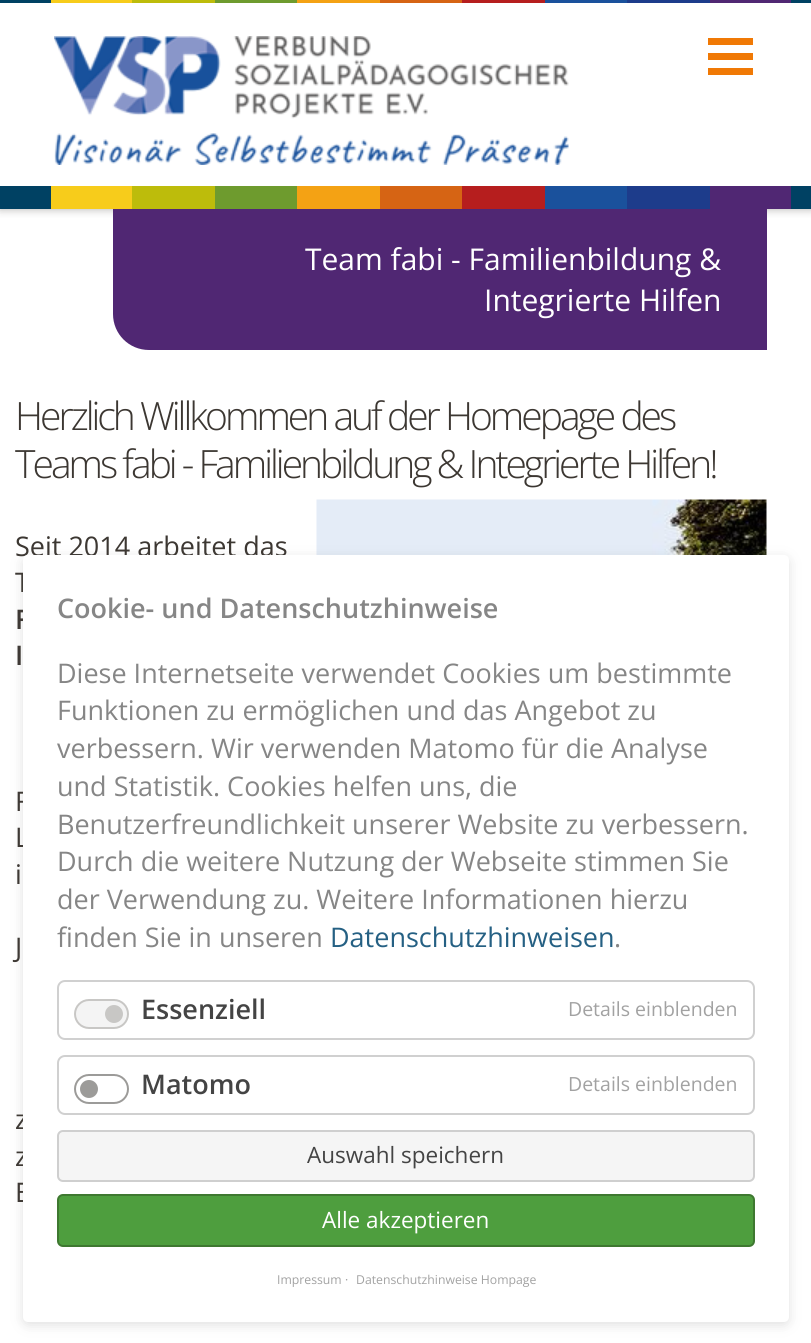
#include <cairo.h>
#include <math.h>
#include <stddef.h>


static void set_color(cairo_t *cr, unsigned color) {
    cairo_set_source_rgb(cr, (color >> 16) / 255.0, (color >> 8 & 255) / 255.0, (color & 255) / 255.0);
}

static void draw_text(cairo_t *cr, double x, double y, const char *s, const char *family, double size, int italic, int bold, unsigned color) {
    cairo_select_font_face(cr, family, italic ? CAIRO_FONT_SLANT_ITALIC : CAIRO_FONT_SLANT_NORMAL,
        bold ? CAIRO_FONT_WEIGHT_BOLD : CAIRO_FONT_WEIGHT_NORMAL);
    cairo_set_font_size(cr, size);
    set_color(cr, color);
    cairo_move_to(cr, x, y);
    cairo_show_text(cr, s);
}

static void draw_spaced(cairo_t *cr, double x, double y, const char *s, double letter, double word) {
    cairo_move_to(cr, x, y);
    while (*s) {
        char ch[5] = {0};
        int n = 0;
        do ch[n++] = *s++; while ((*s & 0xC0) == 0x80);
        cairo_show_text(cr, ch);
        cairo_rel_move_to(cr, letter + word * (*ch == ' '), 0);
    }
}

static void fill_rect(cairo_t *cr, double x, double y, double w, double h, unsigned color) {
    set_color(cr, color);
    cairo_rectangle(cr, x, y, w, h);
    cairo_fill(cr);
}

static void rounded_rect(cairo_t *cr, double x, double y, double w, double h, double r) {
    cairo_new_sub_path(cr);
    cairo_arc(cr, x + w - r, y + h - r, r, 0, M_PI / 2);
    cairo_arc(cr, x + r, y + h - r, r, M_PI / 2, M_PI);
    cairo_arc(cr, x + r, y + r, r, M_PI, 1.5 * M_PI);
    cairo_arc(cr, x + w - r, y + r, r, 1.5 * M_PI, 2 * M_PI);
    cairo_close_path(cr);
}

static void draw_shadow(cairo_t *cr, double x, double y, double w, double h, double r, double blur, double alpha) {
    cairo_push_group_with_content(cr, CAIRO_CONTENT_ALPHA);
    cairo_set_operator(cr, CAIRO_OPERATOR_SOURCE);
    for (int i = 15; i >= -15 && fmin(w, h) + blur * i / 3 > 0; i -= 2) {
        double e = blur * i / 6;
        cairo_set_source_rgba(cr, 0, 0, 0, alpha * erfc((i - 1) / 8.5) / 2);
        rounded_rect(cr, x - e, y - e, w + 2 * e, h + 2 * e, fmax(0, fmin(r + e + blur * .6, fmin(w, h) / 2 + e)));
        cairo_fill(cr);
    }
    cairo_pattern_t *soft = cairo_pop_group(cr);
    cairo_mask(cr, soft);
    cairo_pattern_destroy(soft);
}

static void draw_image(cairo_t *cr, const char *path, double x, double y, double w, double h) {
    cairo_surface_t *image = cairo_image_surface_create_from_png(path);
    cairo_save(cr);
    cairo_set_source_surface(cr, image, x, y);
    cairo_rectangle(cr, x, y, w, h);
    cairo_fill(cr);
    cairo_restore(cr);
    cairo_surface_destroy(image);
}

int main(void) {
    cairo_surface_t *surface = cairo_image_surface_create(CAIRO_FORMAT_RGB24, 811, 1343);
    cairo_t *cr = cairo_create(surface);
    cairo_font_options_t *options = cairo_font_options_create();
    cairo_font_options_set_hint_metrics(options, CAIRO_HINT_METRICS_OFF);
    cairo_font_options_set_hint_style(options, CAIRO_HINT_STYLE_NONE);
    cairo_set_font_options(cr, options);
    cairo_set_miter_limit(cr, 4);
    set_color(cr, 0xFFFFFF);
    cairo_paint(cr);
    cairo_save(cr);
    cairo_rectangle(cr, 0, 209, 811, 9);
    cairo_clip(cr);
    set_color(cr, 0xB1AFAD);
    draw_shadow(cr, 0, 0, 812, 209, 0, 4.5, 1);
    cairo_restore(cr);
    fill_rect(cr, 0, 186, 811, 23, 0x004163);
    fill_rect(cr, 0, 0, 811, 3, 0x004163);
    fill_rect(cr, 51, 0, 81, 3, 0xF7CC1B);
    fill_rect(cr, 132, 0, 83, 3, 0xBDBC0B);
    fill_rect(cr, 215, 0, 82, 3, 0x6E9B2E);
    fill_rect(cr, 297, 0, 83, 3, 0xF4A214);
    fill_rect(cr, 380, 0, 82, 3, 0xD66414);
    fill_rect(cr, 462, 0, 83, 3, 0xB61E1E);
    fill_rect(cr, 545, 0, 82, 3, 0x1A519C);
    fill_rect(cr, 627, 0, 83, 3, 0x1D3C8B);
    fill_rect(cr, 710, 0, 81, 3, 0x502773);
    draw_image(cr, "assets/img1.png", 54, 36, 515, 129);
    fill_rect(cr, 708, 38, 45, 7, 0xF07905);
    fill_rect(cr, 708, 53, 45, 7, 0xF07905);
    fill_rect(cr, 708, 68, 45, 7, 0xF07905);
    fill_rect(cr, 51, 186, 81, 23, 0xF7CC1B);
    fill_rect(cr, 132, 186, 83, 23, 0xBDBC0B);
    fill_rect(cr, 215, 186, 82, 23, 0x6E9B2E);
    fill_rect(cr, 297, 186, 83, 23, 0xF4A214);
    fill_rect(cr, 380, 186, 82, 23, 0xD66414);
    fill_rect(cr, 462, 186, 83, 23, 0xB61E1E);
    fill_rect(cr, 545, 186, 82, 23, 0x1A519C);
    fill_rect(cr, 627, 186, 83, 23, 0x1D3C8B);
    fill_rect(cr, 710, 186, 81, 23, 0x502773);
    cairo_new_path(cr);
    cairo_move_to(cr, 113, 209);
    cairo_line_to(cr, 767, 209);
    cairo_line_to(cr, 767, 350);
    cairo_line_to(cr, 149, 350);
    cairo_curve_to(cr, 129, 350, 113, 334, 113, 314);
    cairo_close_path(cr);
    cairo_fill(cr);
    draw_text(cr, 305, 270, "Team fabi - Familienbildung &", "Open Sans", 30, 0, 0, 0xFFFFFF);
    draw_text(cr, 484, 311, "Integrierte Hilfen", "Open Sans", 30, 0, 0, 0xFFFFFF);
    cairo_select_font_face(cr, "Open Sans Light", CAIRO_FONT_SLANT_NORMAL, CAIRO_FONT_WEIGHT_NORMAL);
    cairo_set_font_size(cr, 39);
    set_color(cr, 0x3C3732);
    draw_spaced(cr, 15, 430, "Herzlich Willkommen auf der Homepage des", -3, 0);
    draw_spaced(cr, 15, 478, "Teams fabi - Familienbildung & Integrierte Hilfen!", -3, 0);
    draw_image(cr, "assets/img2.png", 316, 499, 451, 56);
    draw_text(cr, 15, 556, "Seit 2014 arbeitet das", "Open Sans", 27, 0, 0, 0x3C3732);
    draw_text(cr, 15, 592, "T", "Open Sans", 27, 0, 0, 0x3C3732);
    draw_text(cr, 15, 629, "F", "Open Sans SemiBold", 27, 0, 0, 0x3C3732);
    draw_text(cr, 15, 665, "I", "Open Sans SemiBold", 27, 0, 0, 0x3C3732);
    draw_text(cr, 15, 811, "F", "Open Sans", 27, 0, 0, 0x3C3732);
    draw_text(cr, 15, 847, "L", "Open Sans", 27, 0, 0, 0x3C3732);
    draw_text(cr, 15, 884, "i", "Open Sans", 27, 0, 0, 0x3C3732);
    draw_text(cr, 15, 957, "J", "Open Sans", 27, 0, 0, 0x3C3732);
    draw_text(cr, 15, 1129, "z", "Open Sans", 27, 0, 0, 0x3C3732);
    draw_text(cr, 15, 1166, "z", "Open Sans", 27, 0, 0, 0x3C3732);
    draw_text(cr, 15, 1202, "E", "Open Sans", 27, 0, 0, 0x3C3732);
    set_color(cr, 0x636363);
    draw_shadow(cr, 23, 558, 766, 767, 5, 6, 0.2);
    set_color(cr, 0xFFFFFF);
    rounded_rect(cr, 23, 555, 766, 767, 5);
    cairo_fill(cr);
    draw_text(cr, 57, 618, "Cookie- und Datenschutzhinweise", "Open Sans SemiBold", 27, 0, 0, 0x868686);
    draw_text(cr, 57, 683, "Diese Internetseite verwendet Cookies um bestimmte", "Open Sans", 27, 0, 0, 0x868686);
    draw_text(cr, 57, 720, "Funktionen zu ermöglichen und das Angebot zu", "Open Sans", 27, 0, 0, 0x868686);
    draw_text(cr, 57, 758, "verbessern. Wir verwenden Matomo für die Analyse", "Open Sans", 27, 0, 0, 0x868686);
    draw_text(cr, 57, 796, "und Statistik. Cookies helfen uns, die", "Open Sans", 27, 0, 0, 0x868686);
    draw_text(cr, 57, 834, "Benutzerfreundlichkeit unserer Website zu verbessern.", "Open Sans", 27, 0, 0, 0x868686);
    draw_text(cr, 57, 871, "Durch die weitere Nutzung der Webseite stimmen Sie", "Open Sans", 27, 0, 0, 0x868686);
    draw_text(cr, 57, 909, "der Verwendung zu. Weitere Informationen hierzu", "Open Sans", 27, 0, 0, 0x868686);
    draw_text(cr, 57, 947, "finden Sie in unseren", "Open Sans", 27, 0, 0, 0x868686);
    draw_text(cr, 330, 947, "Datenschutzhinweisen", "Open Sans", 27, 0, 0, 0x256083);
    draw_text(cr, 614, 947, ".", "Open Sans", 27, 0, 0, 0x868686);
    rounded_rect(cr, 58, 981, 696, 58, 7);
    set_color(cr, 0xD0D0D0);
    cairo_stroke(cr);
    set_color(cr, 0xF4F4F4);
    rounded_rect(cr, 75, 1000, 53, 28, 14);
    cairo_fill_preserve(cr);
    set_color(cr, 0xC8C7C5);
    cairo_stroke(cr);
    draw_text(cr, 141, 1019, "Essenziell", "Open Sans SemiBold", 27, 0, 0, 0x444444);
    set_color(cr, 0xC8C7C5);
    cairo_new_path(cr);
    cairo_arc(cr, 114, 1014, 9, 0, 2 * M_PI);
    cairo_fill(cr);
    draw_text(cr, 568, 1016, "Details einblenden", "Open Sans", 19.5, 0, 0, 0xA2A2A2);
    rounded_rect(cr, 58, 1056, 696, 58, 7);
    set_color(cr, 0xD0D0D0);
    cairo_stroke(cr);
    rounded_rect(cr, 75, 1075, 53, 28, 14);
    set_color(cr, 0x9C9B99);
    cairo_stroke(cr);
    draw_text(cr, 141, 1094, "Matomo", "Open Sans SemiBold", 27, 0, 0, 0x444444);
    set_color(cr, 0x9C9B99);
    cairo_new_path(cr);
    cairo_arc(cr, 89, 1089, 9, 0, 2 * M_PI);
    cairo_fill(cr);
    draw_text(cr, 568, 1091, "Details einblenden", "Open Sans", 19.5, 0, 0, 0xA2A2A2);
    set_color(cr, 0xF5F5F5);
    rounded_rect(cr, 58, 1131, 696, 50, 5);
    cairo_fill_preserve(cr);
    set_color(cr, 0xCFCFCF);
    cairo_stroke(cr);
    draw_text(cr, 307, 1163, "Auswahl speichern", "Open Sans", 22.5, 0, 0, 0x444444);
    set_color(cr, 0x4E9E3E);
    rounded_rect(cr, 58, 1195, 696, 51, 5);
    cairo_fill_preserve(cr);
    set_color(cr, 0x3E7830);
    cairo_stroke(cr);
    draw_text(cr, 322, 1228, "Alle akzeptieren", "Open Sans", 22.5, 0, 0, 0xFFFFFF);
    draw_text(cr, 277, 1284, "Impressum", "Open Sans", 12.25, 0, 0, 0xA2A2A2);
    draw_text(cr, 345, 1284, "·", "Open Sans", 12.25, 0, 0, 0xA2A2A2);
    draw_text(cr, 356, 1284, "Datenschutzhinweise Hompage", "Open Sans", 12.25, 0, 0, 0xA2A2A2);
    cairo_surface_write_to_png(surface, "output.png");
    cairo_font_options_destroy(options);
    cairo_destroy(cr);
    cairo_surface_destroy(surface);
    return 0;
}
